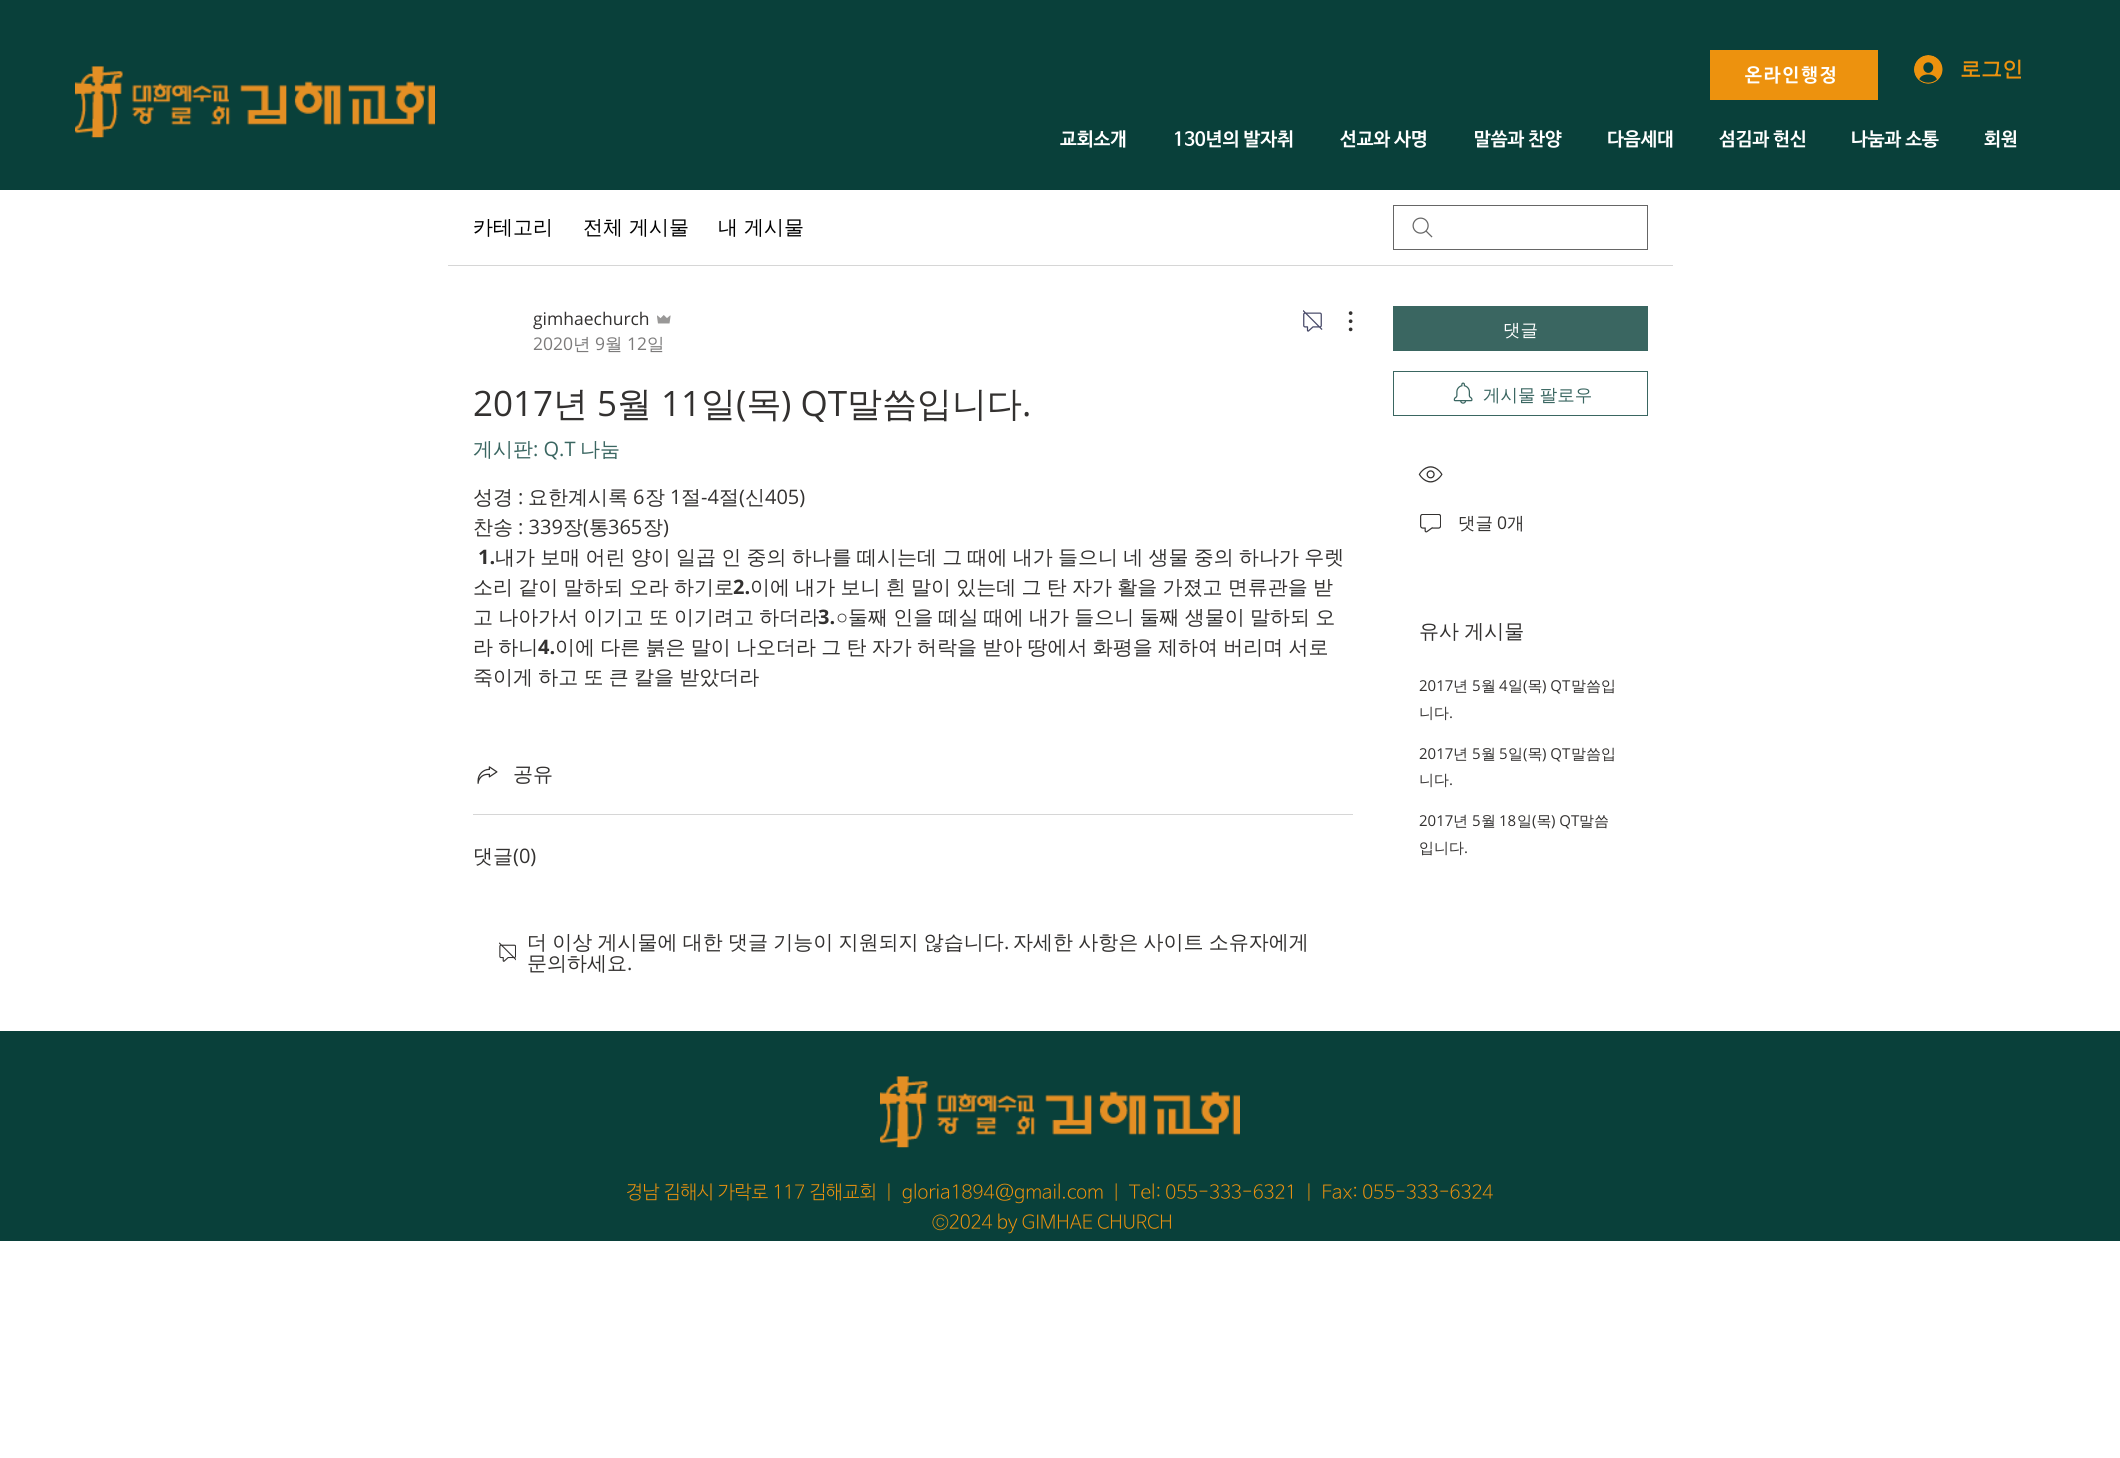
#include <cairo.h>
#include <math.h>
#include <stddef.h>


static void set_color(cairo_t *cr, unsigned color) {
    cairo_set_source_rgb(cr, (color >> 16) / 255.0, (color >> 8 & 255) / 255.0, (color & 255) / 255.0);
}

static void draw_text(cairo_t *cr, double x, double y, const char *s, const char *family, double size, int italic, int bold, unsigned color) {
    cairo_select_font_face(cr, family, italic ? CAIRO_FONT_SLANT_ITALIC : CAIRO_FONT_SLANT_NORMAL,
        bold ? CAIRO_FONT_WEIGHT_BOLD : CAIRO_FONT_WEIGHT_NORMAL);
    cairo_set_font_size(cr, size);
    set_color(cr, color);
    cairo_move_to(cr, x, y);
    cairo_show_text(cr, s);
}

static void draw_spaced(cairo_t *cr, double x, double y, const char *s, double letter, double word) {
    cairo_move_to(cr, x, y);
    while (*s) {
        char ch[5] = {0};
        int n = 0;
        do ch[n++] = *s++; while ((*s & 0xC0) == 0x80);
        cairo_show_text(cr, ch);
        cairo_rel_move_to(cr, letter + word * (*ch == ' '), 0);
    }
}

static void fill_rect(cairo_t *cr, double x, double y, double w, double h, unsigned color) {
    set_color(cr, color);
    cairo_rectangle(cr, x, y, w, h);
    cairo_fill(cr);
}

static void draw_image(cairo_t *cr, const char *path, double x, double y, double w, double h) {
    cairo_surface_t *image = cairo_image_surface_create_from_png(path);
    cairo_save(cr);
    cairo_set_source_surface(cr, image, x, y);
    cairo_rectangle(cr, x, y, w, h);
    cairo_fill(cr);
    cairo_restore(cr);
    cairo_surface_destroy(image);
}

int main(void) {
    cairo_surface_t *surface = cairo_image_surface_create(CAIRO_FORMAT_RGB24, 2120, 1458);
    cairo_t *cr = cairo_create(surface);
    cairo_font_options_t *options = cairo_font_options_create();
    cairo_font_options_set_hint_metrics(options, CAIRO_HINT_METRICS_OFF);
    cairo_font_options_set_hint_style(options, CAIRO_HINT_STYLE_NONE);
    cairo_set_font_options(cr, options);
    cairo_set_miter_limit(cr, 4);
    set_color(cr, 0xFFFFFF);
    cairo_paint(cr);
    fill_rect(cr, 0, 0, 2120, 190, 0x09403A);
    draw_image(cr, "assets/img1.png", 75, 66, 360, 72);
    fill_rect(cr, 1710, 50, 168, 50, 0xED920E);
    cairo_select_font_face(cr, "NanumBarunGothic", CAIRO_FONT_SLANT_NORMAL, CAIRO_FONT_WEIGHT_BOLD);
    cairo_set_font_size(cr, 18.75);
    set_color(cr, 0xFFFFFF);
    draw_spaced(cr, 1745, 81, "온라인행정", 2, 0);
    draw_image(cr, "assets/img2.png", 1914, 55, 29, 29);
    draw_text(cr, 1960, 76, "로그인", "WenQuanYi Zen Hei", 21, 0, 1, 0xED920E);
    draw_text(cr, 1060, 145, "교회소개", "NanumBarunGothic", 18.75, 0, 1, 0xFFFFFF);
    draw_text(cr, 1173, 145, "130년의 발자취", "NanumBarunGothic", 18.75, 0, 1, 0xFFFFFF);
    draw_text(cr, 1340, 145, "선교와 사명", "NanumBarunGothic", 18.75, 0, 1, 0xFFFFFF);
    draw_text(cr, 1474, 145, "말씀과 찬양", "NanumBarunGothic", 18.75, 0, 1, 0xFFFFFF);
    draw_text(cr, 1607, 145, "다음세대", "NanumBarunGothic", 18.75, 0, 1, 0xFFFFFF);
    draw_text(cr, 1719, 145, "섬김과 헌신", "NanumBarunGothic", 18.75, 0, 1, 0xFFFFFF);
    draw_text(cr, 1851, 145, "나눔과 소통", "NanumBarunGothic", 18.75, 0, 1, 0xFFFFFF);
    draw_text(cr, 1984, 145, "회원", "NanumBarunGothic", 18.75, 0, 1, 0xFFFFFF);
    fill_rect(cr, 448, 265, 1225, 1, 0xD6D6D6);
    draw_text(cr, 473, 234, "카테고리", "WenQuanYi Zen Hei Medium", 20, 0, 0, 0x000000);
    draw_text(cr, 583, 234, "전체 게시물", "WenQuanYi Zen Hei Medium", 20, 0, 0, 0x000000);
    draw_text(cr, 718, 234, "내 게시물", "WenQuanYi Zen Hei Medium", 20, 0, 0, 0x000000);
    draw_image(cr, "assets/img3.png", 1412, 217, 21, 21);
    cairo_rectangle(cr, 1393.5, 205.5, 254, 44);
    set_color(cr, 0x666666);
    cairo_set_line_width(cr, 1);
    cairo_stroke(cr);
    draw_text(cr, 533, 325, "gimhaechurch", "Open Sans", 17.5, 0, 0, 0x333130);
    draw_image(cr, "assets/img4.png", 657, 315, 14, 9);
    draw_text(cr, 533, 350, "2020", "Open Sans", 17.5, 0, 0, 0x7C7B7B);
    draw_text(cr, 573, 350, "년", "WenQuanYi Zen Hei Medium", 17.5, 0, 0, 0x7C7B7B);
    draw_text(cr, 595, 350, "9", "Open Sans", 17.5, 0, 0, 0x7C7B7B);
    draw_text(cr, 605, 350, "월", "WenQuanYi Zen Hei Medium", 17.5, 0, 0, 0x7C7B7B);
    draw_text(cr, 627, 350, "12", "Open Sans", 17.5, 0, 0, 0x7C7B7B);
    draw_text(cr, 647, 350, "일", "WenQuanYi Zen Hei Medium", 17.5, 0, 0, 0x7C7B7B);
    draw_image(cr, "assets/img5.png", 1303, 310, 20, 22);
    draw_image(cr, "assets/img6.png", 1348, 311, 5, 21);
    draw_text(cr, 473, 416, "2017", "Open Sans", 35, 0, 0, 0x333130);
    draw_text(cr, 553, 416, "년", "WenQuanYi Zen Hei Medium", 35, 0, 0, 0x333130);
    draw_text(cr, 597, 416, "5", "Open Sans", 35, 0, 0, 0x333130);
    draw_text(cr, 617, 416, "월", "WenQuanYi Zen Hei Medium", 35, 0, 0, 0x333130);
    draw_text(cr, 661, 416, "11", "Open Sans", 35, 0, 0, 0x333130);
    draw_text(cr, 701, 416, "일 목", "WenQuanYi Zen Hei Medium", 35, 0, 0, 0x333130);
    draw_text(cr, 781, 416, ") QT", "Open Sans", 35, 0, 0, 0x333130);
    draw_text(cr, 847, 416, "말씀입니다", "WenQuanYi Zen Hei Medium", 35, 0, 0, 0x333130);
    draw_text(cr, 736, 416, "(", "Open Sans", 35, 0, 0, 0x333130);
    draw_text(cr, 1022, 416, ".", "Open Sans", 35, 0, 0, 0x333130);
    draw_text(cr, 473, 456, "게시판", "WenQuanYi Zen Hei Medium", 20, 0, 0, 0x3A6661);
    draw_text(cr, 533, 456, ": Q.T", "Open Sans", 20, 0, 0, 0x3A6661);
    draw_text(cr, 580, 456, "나눔", "WenQuanYi Zen Hei Medium", 20, 0, 0, 0x3A6661);
    draw_text(cr, 473, 504, "성경", "WenQuanYi Zen Hei Medium", 20, 0, 0, 0x333130);
    draw_text(cr, 528, 504, "요한계시록", "WenQuanYi Zen Hei Medium", 20, 0, 0, 0x333130);
    draw_text(cr, 633, 504, "6", "Open Sans", 20, 0, 0, 0x333130);
    draw_text(cr, 645, 504, "장", "WenQuanYi Zen Hei Medium", 20, 0, 0, 0x333130);
    draw_text(cr, 670, 504, "1", "Open Sans", 20, 0, 0, 0x333130);
    draw_text(cr, 681, 504, "절", "WenQuanYi Zen Hei Medium", 20, 0, 0, 0x333130);
    draw_text(cr, 701, 504, "-4", "Open Sans", 20, 0, 0, 0x333130);
    draw_text(cr, 719, 504, "절 신", "WenQuanYi Zen Hei Medium", 20, 0, 0, 0x333130);
    draw_text(cr, 518, 504, ":", "Open Sans", 20, 0, 0, 0x333130);
    draw_text(cr, 739, 504, "(", "Open Sans", 20, 0, 0, 0x333130);
    draw_text(cr, 765, 504, "405)", "Open Sans", 20, 0, 0, 0x333130);
    draw_text(cr, 473, 534, "찬송", "WenQuanYi Zen Hei Medium", 20, 0, 0, 0x333130);
    draw_text(cr, 518, 534, ": 339", "Open Sans", 20, 0, 0, 0x333130);
    draw_text(cr, 563, 534, "장 통", "WenQuanYi Zen Hei Medium", 20, 0, 0, 0x333130);
    draw_text(cr, 583, 534, "(", "Open Sans", 20, 0, 0, 0x333130);
    draw_text(cr, 608, 534, "365", "Open Sans", 20, 0, 0, 0x333130);
    draw_text(cr, 643, 534, "장", "WenQuanYi Zen Hei Medium", 20, 0, 0, 0x333130);
    draw_text(cr, 663, 534, ")", "Open Sans", 20, 0, 0, 0x333130);
    draw_text(cr, 478, 564, "1.", "Open Sans", 20, 0, 1, 0x333130);
    cairo_select_font_face(cr, "WenQuanYi Zen Hei Medium", CAIRO_FONT_SLANT_NORMAL, CAIRO_FONT_WEIGHT_NORMAL);
    draw_spaced(cr, 495, 564, "내가 보매 어린 양이 일곱 인 중의 하나를 떼시는데 그 때에 내가 들으니 네 생물 중의 하나가 우렛", 0, -0.75);
    draw_spaced(cr, 473, 594, "소리 같이 말하되 오라 하기로", 0, -0.75);
    draw_text(cr, 733, 594, "2.", "Open Sans", 20, 0, 1, 0x333130);
    cairo_select_font_face(cr, "WenQuanYi Zen Hei Medium", CAIRO_FONT_SLANT_NORMAL, CAIRO_FONT_WEIGHT_NORMAL);
    draw_spaced(cr, 750, 594, "이에 내가 보니 흰 말이 있는데 그 탄 자가 활을 가졌고 면류관을 받", 0, -0.75);
    draw_spaced(cr, 473, 624, "고 나아가서 이기고 또 이기려고 하더라", 0, -0.75);
    draw_text(cr, 818, 624, "3.", "Open Sans", 20, 0, 1, 0x333130);
    draw_text(cr, 836, 624, "○", "Liberation Sans", 20, 0, 0, 0x333130);
    cairo_select_font_face(cr, "WenQuanYi Zen Hei Medium", CAIRO_FONT_SLANT_NORMAL, CAIRO_FONT_WEIGHT_NORMAL);
    draw_spaced(cr, 848, 624, "둘째 인을 떼실 때에 내가 들으니 둘째 생물이 말하되 오", 0, -0.75);
    draw_spaced(cr, 473, 654, "라 하니", 0, -0.75);
    draw_text(cr, 538, 654, "4.", "Open Sans", 20, 0, 1, 0x333130);
    cairo_select_font_face(cr, "WenQuanYi Zen Hei Medium", CAIRO_FONT_SLANT_NORMAL, CAIRO_FONT_WEIGHT_NORMAL);
    draw_spaced(cr, 555, 654, "이에 다른 붉은 말이 나오더라 그 탄 자가 허락을 받아 땅에서 화평을 제하여 버리며 서로", 0, -0.75);
    draw_spaced(cr, 473, 684, "죽이게 하고 또 큰 칼을 받았더라", 0, -0.75);
    draw_image(cr, "assets/img7.png", 477, 766, 21, 18);
    draw_text(cr, 513, 781, "공유", "WenQuanYi Zen Hei Medium", 20, 0, 0, 0x333130);
    fill_rect(cr, 473, 814, 880, 1, 0xD6D6D6);
    draw_text(cr, 473, 863, "댓글", "WenQuanYi Zen Hei Medium", 20, 0, 0, 0x333130);
    draw_text(cr, 513, 863, "(0)", "Open Sans", 20, 0, 0, 0x333130);
    draw_image(cr, "assets/img8.png", 499, 942, 17, 20);
    cairo_select_font_face(cr, "WenQuanYi Zen Hei Medium", CAIRO_FONT_SLANT_NORMAL, CAIRO_FONT_WEIGHT_NORMAL);
    draw_spaced(cr, 527, 949, "더 이상 게시물에 대한 댓글 기능이 지원되지 않습니다", 0, -0.75);
    draw_text(cr, 1004, 949, ".", "Open Sans", 20, 0, 0, 0x333130);
    cairo_select_font_face(cr, "WenQuanYi Zen Hei Medium", CAIRO_FONT_SLANT_NORMAL, CAIRO_FONT_WEIGHT_NORMAL);
    draw_spaced(cr, 1013, 949, "자세한 사항은 사이트 소유자에게", 0, -0.75);
    draw_text(cr, 527, 970, "문의하세요", "WenQuanYi Zen Hei Medium", 20, 0, 0, 0x333130);
    draw_text(cr, 627, 970, ".", "Open Sans", 20, 0, 0, 0x333130);
    fill_rect(cr, 1393, 306, 255, 45, 0x3A6661);
    draw_text(cr, 1503, 336, "댓글", "WenQuanYi Zen Hei Medium", 17.5, 0, 0, 0xFFFFFF);
    cairo_rectangle(cr, 1393.5, 371.5, 254, 44);
    set_color(cr, 0x3A6661);
    cairo_stroke(cr);
    draw_image(cr, "assets/img9.png", 1453, 382, 20, 22);
    draw_spaced(cr, 1483, 401, "게시물 팔로우", 0, -1);
    draw_image(cr, "assets/img10.png", 1418, 466, 25, 17);
    draw_image(cr, "assets/img11.png", 1420, 514, 21, 19);
    draw_text(cr, 1458, 529, "댓글", "WenQuanYi Zen Hei Medium", 17.5, 0, 0, 0x333130);
    draw_text(cr, 1497, 529, "0", "Open Sans", 17.5, 0, 0, 0x333130);
    draw_text(cr, 1507, 529, "개", "WenQuanYi Zen Hei Medium", 17.5, 0, 0, 0x333130);
    cairo_set_font_size(cr, 20);
    draw_spaced(cr, 1419, 638, "유사 게시물", 0, -0.75);
    draw_text(cr, 1419, 691, "2017", "Open Sans", 15, 0, 0, 0x333130);
    draw_text(cr, 1453, 691, "년", "WenQuanYi Zen Hei Medium", 15, 0, 0, 0x333130);
    draw_text(cr, 1472, 691, "5", "Open Sans", 15, 0, 0, 0x333130);
    draw_text(cr, 1481, 691, "월", "WenQuanYi Zen Hei Medium", 15, 0, 0, 0x333130);
    draw_text(cr, 1499, 691, "4", "Open Sans", 15, 0, 0, 0x333130);
    draw_text(cr, 1508, 691, "일 목", "WenQuanYi Zen Hei Medium", 15, 0, 0, 0x333130);
    draw_text(cr, 1571, 691, "말씀입", "WenQuanYi Zen Hei Medium", 15, 0, 0, 0x333130);
    draw_text(cr, 1523, 691, "(", "Open Sans", 15, 0, 0, 0x333130);
    draw_text(cr, 1542, 691, ") QT", "Open Sans", 15, 0, 0, 0x333130);
    draw_text(cr, 1419, 718, "니다", "WenQuanYi Zen Hei Medium", 15, 0, 0, 0x333130);
    draw_text(cr, 1449, 718, ".", "Open Sans", 15, 0, 0, 0x333130);
    draw_text(cr, 1419, 759, "2017", "Open Sans", 15, 0, 0, 0x333130);
    draw_text(cr, 1453, 759, "년", "WenQuanYi Zen Hei Medium", 15, 0, 0, 0x333130);
    draw_text(cr, 1472, 759, "5", "Open Sans", 15, 0, 0, 0x333130);
    draw_text(cr, 1481, 759, "월", "WenQuanYi Zen Hei Medium", 15, 0, 0, 0x333130);
    draw_text(cr, 1499, 759, "5", "Open Sans", 15, 0, 0, 0x333130);
    draw_text(cr, 1508, 759, "일 목", "WenQuanYi Zen Hei Medium", 15, 0, 0, 0x333130);
    draw_text(cr, 1571, 759, "말씀입", "WenQuanYi Zen Hei Medium", 15, 0, 0, 0x333130);
    draw_text(cr, 1523, 759, "(", "Open Sans", 15, 0, 0, 0x333130);
    draw_text(cr, 1542, 759, ") QT", "Open Sans", 15, 0, 0, 0x333130);
    draw_text(cr, 1419, 785, "니다", "WenQuanYi Zen Hei Medium", 15, 0, 0, 0x333130);
    draw_text(cr, 1449, 785, ".", "Open Sans", 15, 0, 0, 0x333130);
    draw_text(cr, 1419, 826, "2017", "Open Sans", 15, 0, 0, 0x333130);
    draw_text(cr, 1453, 826, "년", "WenQuanYi Zen Hei Medium", 15, 0, 0, 0x333130);
    draw_text(cr, 1472, 826, "5", "Open Sans", 15, 0, 0, 0x333130);
    draw_text(cr, 1481, 826, "월", "WenQuanYi Zen Hei Medium", 15, 0, 0, 0x333130);
    draw_text(cr, 1499, 826, "18", "Open Sans", 15, 0, 0, 0x333130);
    draw_text(cr, 1517, 826, "일 목", "WenQuanYi Zen Hei Medium", 15, 0, 0, 0x333130);
    draw_text(cr, 1579, 826, "말씀", "WenQuanYi Zen Hei Medium", 15, 0, 0, 0x333130);
    draw_text(cr, 1532, 826, "(", "Open Sans", 15, 0, 0, 0x333130);
    draw_text(cr, 1551, 826, ") QT", "Open Sans", 15, 0, 0, 0x333130);
    draw_text(cr, 1419, 853, "입니다", "WenQuanYi Zen Hei Medium", 15, 0, 0, 0x333130);
    draw_text(cr, 1464, 853, ".", "Open Sans", 15, 0, 0, 0x333130);
    fill_rect(cr, 0, 1031, 2120, 210, 0x09403A);
    draw_image(cr, "assets/img12.png", 880, 1076, 360, 72);
    draw_text(cr, 626, 1198, "경남 김해시 가락로 117 김해교회  |", "NanumBarunGothic Light", 18.75, 0, 0, 0xED920E);
    draw_text(cr, 902, 1198, "gloria1894@gmail.com", "NanumBarunGothic Light", 18.75, 0, 0, 0xED920E);
    draw_text(cr, 1112, 1198, "|  Tel: 055-333-6321  |  Fax: 055-333-6324", "NanumBarunGothic Light", 18.75, 0, 0, 0xED920E);
    draw_text(cr, 932, 1228, "©2024 by GIMHAE CHURCH", "NanumBarunGothic Light", 18.75, 0, 0, 0xED920E);
    cairo_surface_write_to_png(surface, "output.png");
    cairo_font_options_destroy(options);
    cairo_destroy(cr);
    cairo_surface_destroy(surface);
    return 0;
}
